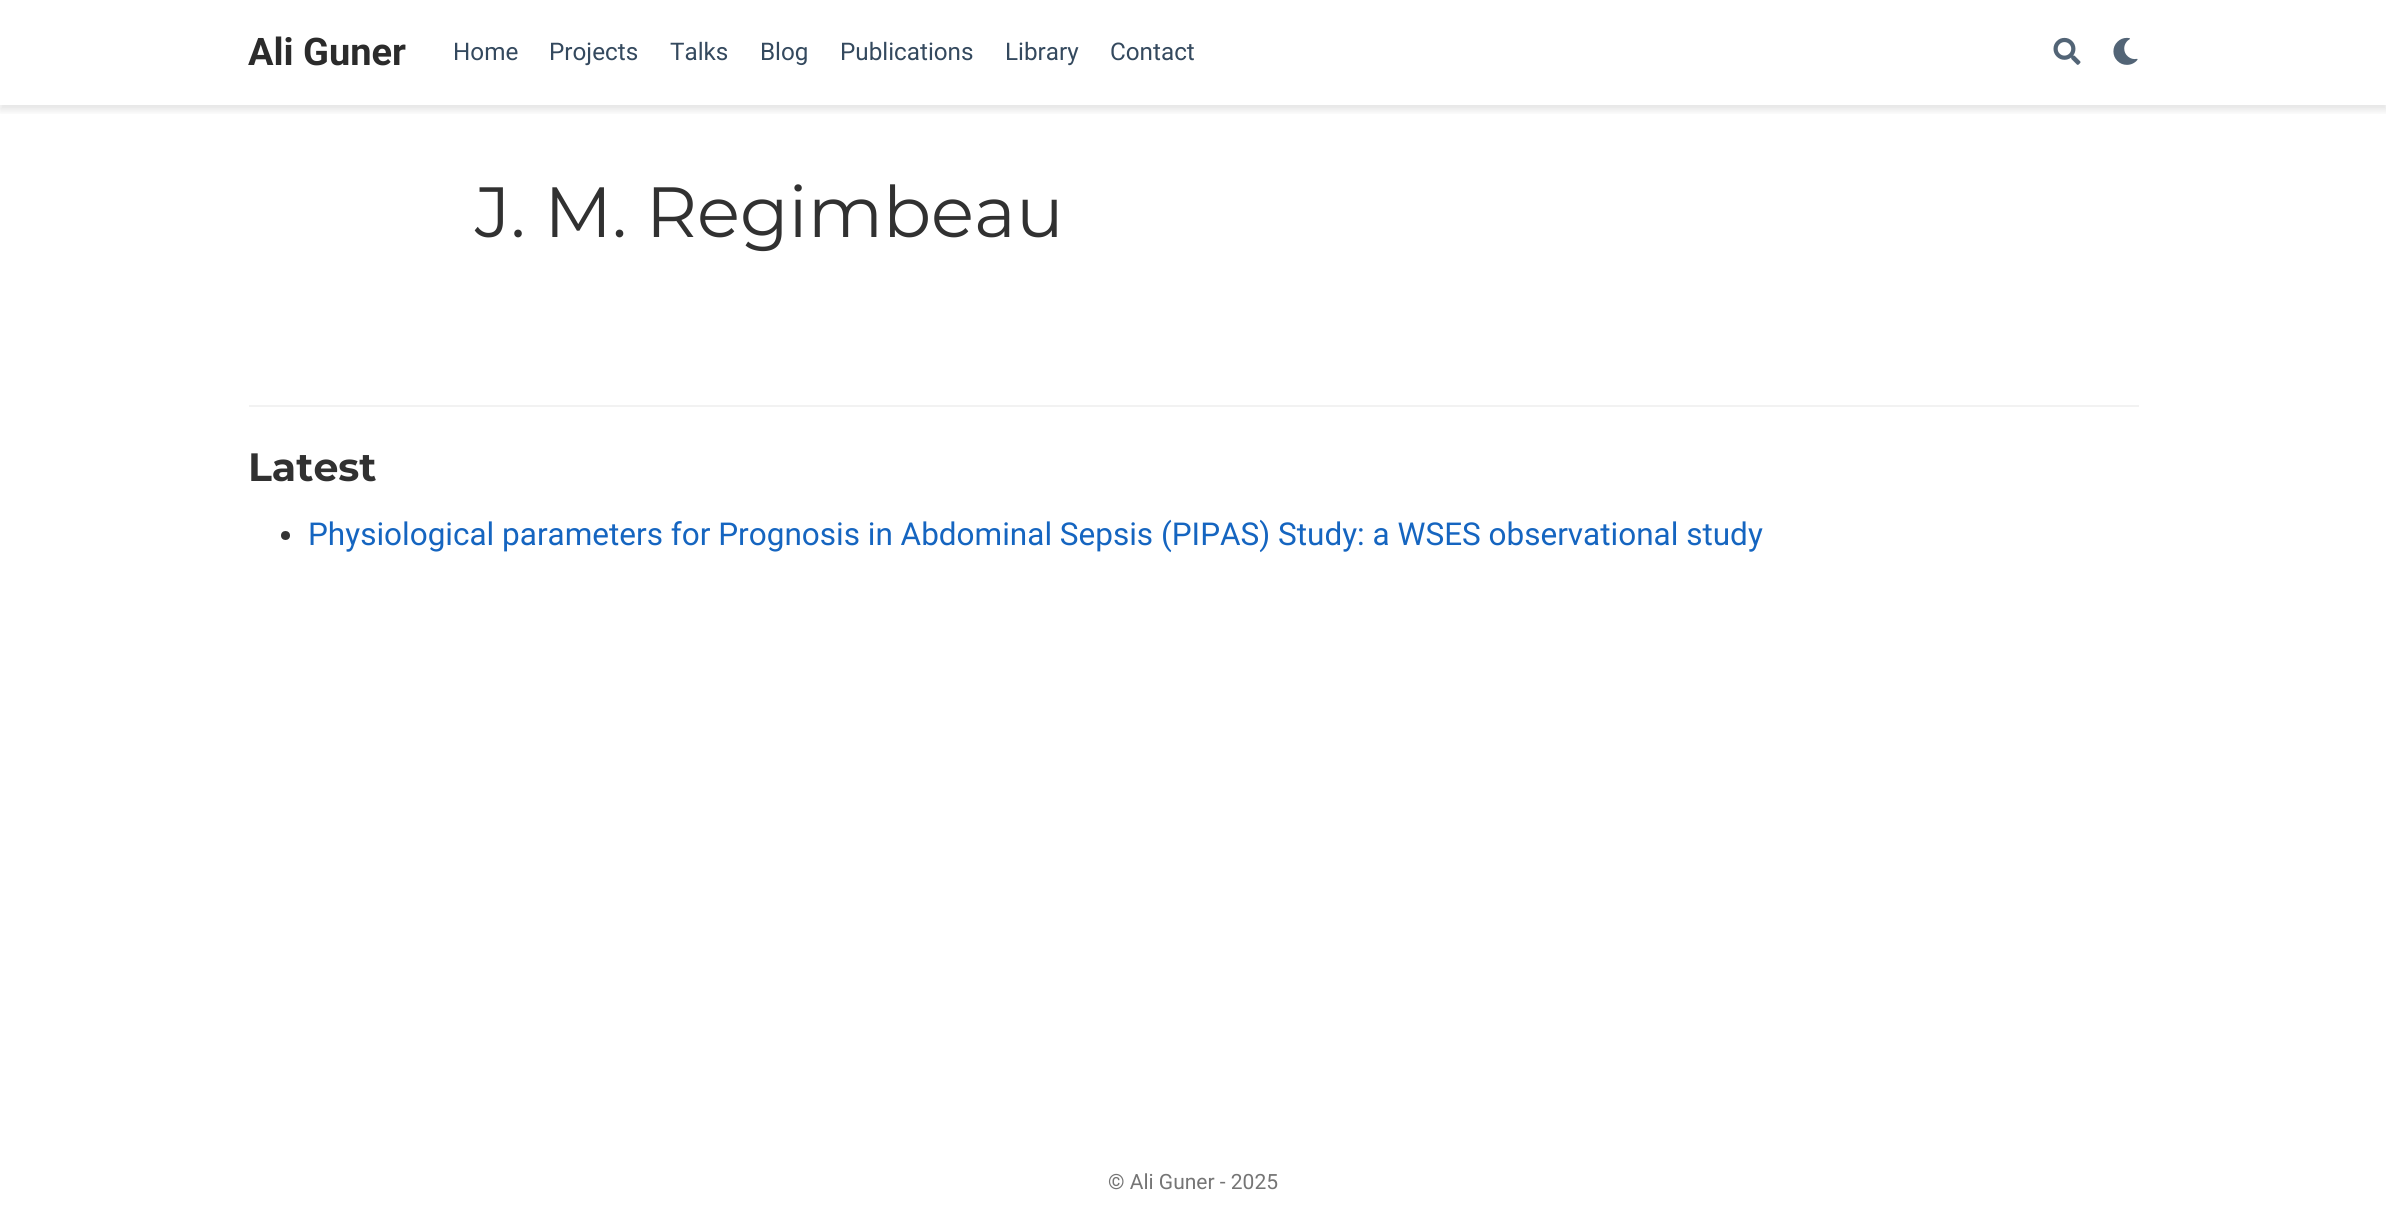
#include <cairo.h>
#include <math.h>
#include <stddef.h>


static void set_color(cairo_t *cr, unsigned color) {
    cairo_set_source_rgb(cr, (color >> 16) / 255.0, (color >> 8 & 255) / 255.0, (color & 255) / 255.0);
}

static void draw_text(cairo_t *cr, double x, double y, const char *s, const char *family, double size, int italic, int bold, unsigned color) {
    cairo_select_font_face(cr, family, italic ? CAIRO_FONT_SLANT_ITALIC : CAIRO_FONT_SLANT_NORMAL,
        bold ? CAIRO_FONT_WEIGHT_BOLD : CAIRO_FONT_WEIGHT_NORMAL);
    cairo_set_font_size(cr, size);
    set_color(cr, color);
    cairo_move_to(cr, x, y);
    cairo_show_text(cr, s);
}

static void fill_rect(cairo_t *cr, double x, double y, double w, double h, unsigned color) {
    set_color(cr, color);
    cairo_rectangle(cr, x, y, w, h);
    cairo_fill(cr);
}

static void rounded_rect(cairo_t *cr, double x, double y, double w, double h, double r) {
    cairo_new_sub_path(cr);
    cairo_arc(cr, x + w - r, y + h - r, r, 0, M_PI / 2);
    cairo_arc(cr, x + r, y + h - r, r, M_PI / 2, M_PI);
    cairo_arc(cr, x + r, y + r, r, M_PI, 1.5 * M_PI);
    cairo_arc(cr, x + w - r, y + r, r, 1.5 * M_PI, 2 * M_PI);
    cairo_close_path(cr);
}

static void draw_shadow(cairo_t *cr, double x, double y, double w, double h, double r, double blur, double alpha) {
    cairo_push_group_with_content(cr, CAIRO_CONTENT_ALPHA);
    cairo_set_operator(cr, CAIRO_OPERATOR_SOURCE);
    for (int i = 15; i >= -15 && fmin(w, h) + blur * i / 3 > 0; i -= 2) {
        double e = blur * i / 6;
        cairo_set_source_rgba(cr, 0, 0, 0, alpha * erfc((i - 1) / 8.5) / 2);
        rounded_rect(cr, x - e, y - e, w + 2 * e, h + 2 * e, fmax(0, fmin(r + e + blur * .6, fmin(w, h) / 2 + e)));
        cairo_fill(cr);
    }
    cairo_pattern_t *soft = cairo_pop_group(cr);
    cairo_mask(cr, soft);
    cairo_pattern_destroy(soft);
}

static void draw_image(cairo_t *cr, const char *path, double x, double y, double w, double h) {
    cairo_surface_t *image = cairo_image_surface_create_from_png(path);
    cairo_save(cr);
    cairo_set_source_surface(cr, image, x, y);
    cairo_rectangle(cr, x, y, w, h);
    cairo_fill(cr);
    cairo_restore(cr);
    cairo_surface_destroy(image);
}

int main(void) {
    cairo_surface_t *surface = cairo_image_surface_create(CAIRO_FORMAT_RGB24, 2386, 1231);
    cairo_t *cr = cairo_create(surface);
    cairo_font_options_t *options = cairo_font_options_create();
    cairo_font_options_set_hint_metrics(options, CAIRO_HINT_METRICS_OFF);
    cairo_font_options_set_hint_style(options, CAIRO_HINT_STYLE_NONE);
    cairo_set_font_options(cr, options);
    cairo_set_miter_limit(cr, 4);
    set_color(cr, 0xFFFFFF);
    cairo_paint(cr);
    cairo_save(cr);
    cairo_rectangle(cr, 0, 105, 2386, 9);
    cairo_clip(cr);
    set_color(cr, 0x000000);
    draw_shadow(cr, 0, 5, 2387, 105, 0, 4, 0.11);
    cairo_restore(cr);
    draw_text(cr, 248, 65, "Ali Guner", "Roboto", 38, 0, 1, 0x2B2B2B);
    draw_text(cr, 453, 60, "Home", "Roboto", 24.25, 0, 0, 0x34495E);
    draw_text(cr, 549, 60, "Projects", "Roboto", 24.25, 0, 0, 0x34495E);
    draw_text(cr, 670, 60, "Talks", "Roboto", 24.25, 0, 0, 0x34495E);
    draw_text(cr, 760, 60, "Blog", "Roboto", 24.25, 0, 0, 0x34495E);
    draw_text(cr, 840, 60, "Publications", "Roboto", 24.25, 0, 0, 0x34495E);
    draw_text(cr, 1005, 60, "Library", "Roboto", 24.25, 0, 0, 0x34495E);
    draw_text(cr, 1110, 60, "Contact", "Roboto", 24.25, 0, 0, 0x34495E);
    draw_image(cr, "assets/img1.png", 2053, 37, 28, 28);
    draw_image(cr, "assets/img2.png", 2113, 37, 25, 28);
    draw_text(cr, 475, 237, "J. M. Regimbeau", "Montserrat", 71, 0, 0, 0x313131);
    fill_rect(cr, 249, 405, 1890, 2, 0xF2F2F2);
    draw_text(cr, 248, 481, "Latest", "Montserrat", 39.5, 0, 1, 0x313131);
    set_color(cr, 0x333333);
    cairo_new_path(cr);
    cairo_arc(cr, 285.5, 535.5, 4.5, 0, 2 * M_PI);
    cairo_fill(cr);
    draw_text(cr, 308, 545, "Physiological parameters for Prognosis in Abdominal Sepsis (PIPAS) Study: a WSES observational study", "Roboto", 31.5, 0, 0, 0x1565C0);
    draw_text(cr, 1108, 1189, "© Ali Guner - 2025", "Roboto", 21, 0, 0, 0x757575);
    cairo_surface_write_to_png(surface, "output.png");
    cairo_font_options_destroy(options);
    cairo_destroy(cr);
    cairo_surface_destroy(surface);
    return 0;
}
